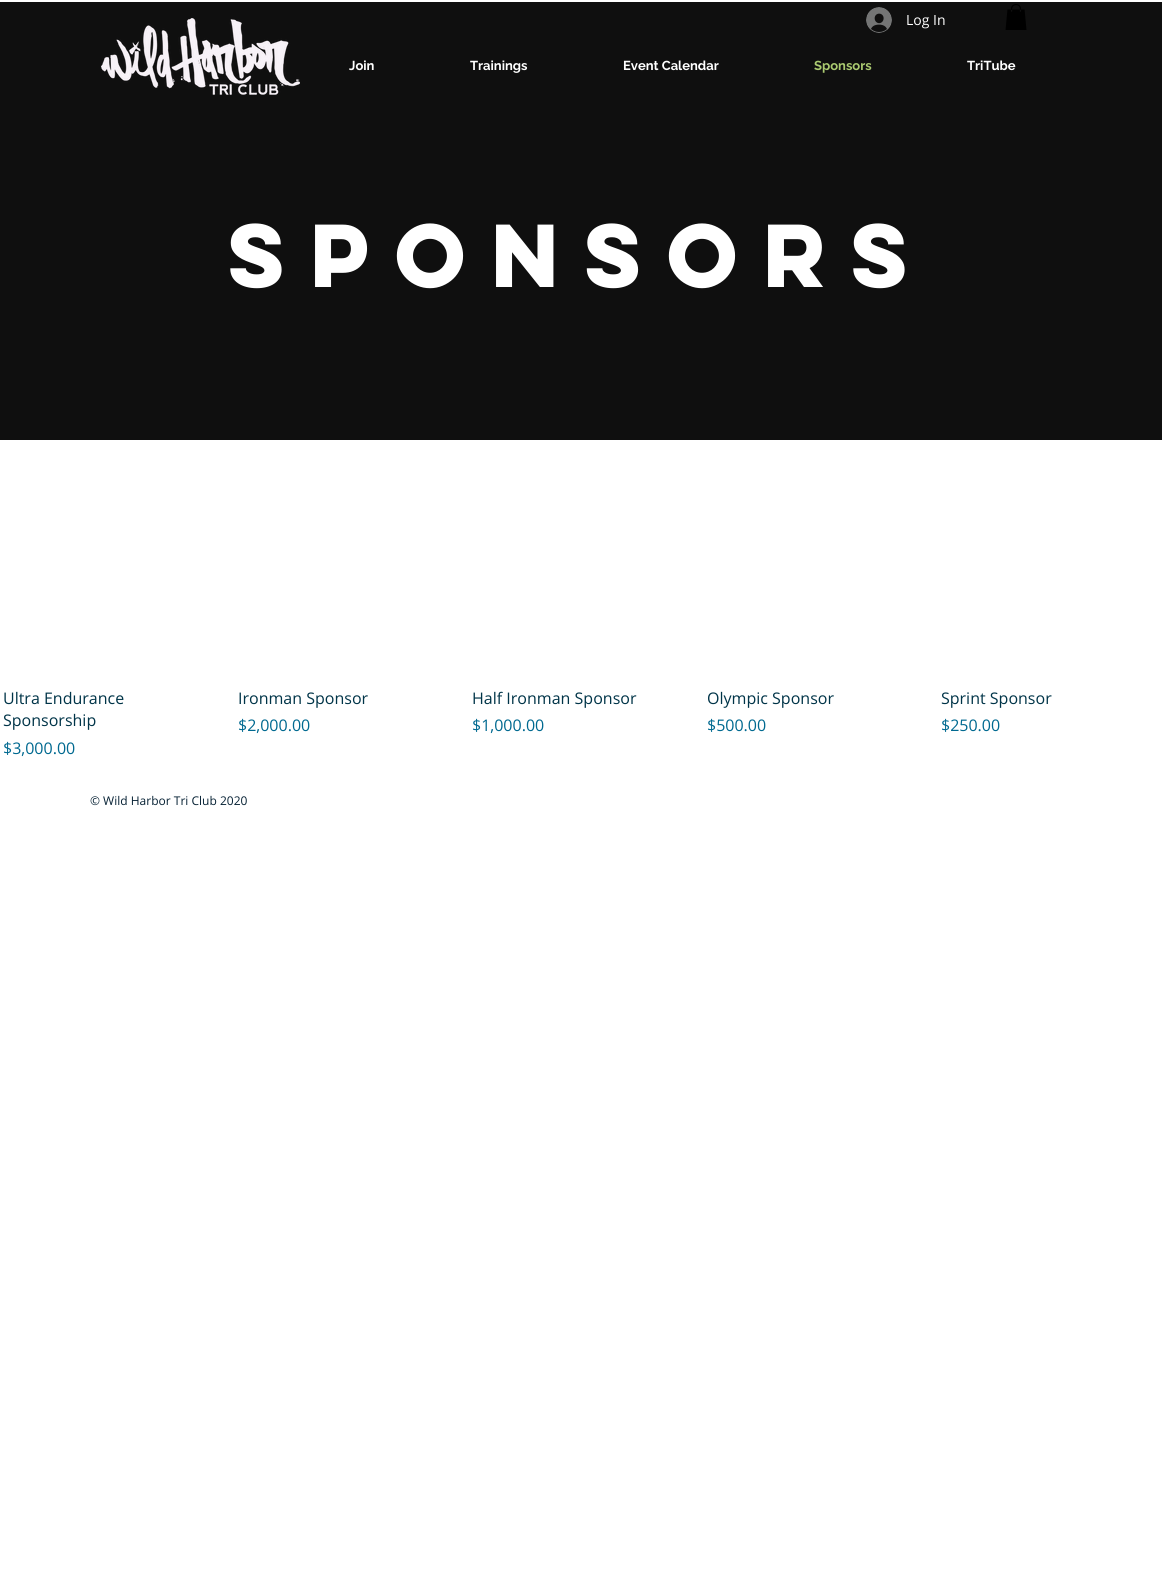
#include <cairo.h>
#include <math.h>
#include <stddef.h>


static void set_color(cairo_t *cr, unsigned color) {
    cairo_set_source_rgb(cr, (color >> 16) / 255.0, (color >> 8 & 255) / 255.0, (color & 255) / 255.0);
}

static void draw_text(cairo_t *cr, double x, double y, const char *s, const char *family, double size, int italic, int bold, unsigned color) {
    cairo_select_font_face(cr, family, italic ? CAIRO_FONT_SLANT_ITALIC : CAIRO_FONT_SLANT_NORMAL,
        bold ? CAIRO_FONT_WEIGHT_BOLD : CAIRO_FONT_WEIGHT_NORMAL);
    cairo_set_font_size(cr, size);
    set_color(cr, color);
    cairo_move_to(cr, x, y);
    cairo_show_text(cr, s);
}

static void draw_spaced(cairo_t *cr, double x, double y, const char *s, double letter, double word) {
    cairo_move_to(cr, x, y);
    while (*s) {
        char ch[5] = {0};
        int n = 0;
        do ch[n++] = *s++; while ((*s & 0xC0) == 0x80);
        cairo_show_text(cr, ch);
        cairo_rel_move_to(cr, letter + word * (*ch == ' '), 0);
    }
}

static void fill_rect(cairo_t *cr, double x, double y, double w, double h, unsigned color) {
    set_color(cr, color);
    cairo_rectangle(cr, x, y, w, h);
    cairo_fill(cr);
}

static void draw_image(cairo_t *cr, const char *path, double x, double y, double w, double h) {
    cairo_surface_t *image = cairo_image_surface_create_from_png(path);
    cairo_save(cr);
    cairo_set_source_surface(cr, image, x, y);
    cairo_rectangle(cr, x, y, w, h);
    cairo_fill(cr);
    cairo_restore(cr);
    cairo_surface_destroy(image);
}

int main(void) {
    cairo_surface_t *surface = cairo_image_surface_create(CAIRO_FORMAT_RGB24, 1162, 1575);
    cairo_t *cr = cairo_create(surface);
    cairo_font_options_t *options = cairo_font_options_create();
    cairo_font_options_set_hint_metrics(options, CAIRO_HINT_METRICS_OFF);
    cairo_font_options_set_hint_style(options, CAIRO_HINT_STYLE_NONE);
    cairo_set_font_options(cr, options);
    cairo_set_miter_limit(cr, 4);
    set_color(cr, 0xFFFFFF);
    cairo_paint(cr);
    fill_rect(cr, 0, 2, 1162, 438, 0x0F0F0F);
    draw_image(cr, "assets/img1.png", 866, 7, 26, 26);
    draw_text(cr, 906, 25, "Log In", "Open Sans", 14, 0, 0, 0xFFFFFF);
    draw_image(cr, "assets/img2.png", 1005, 4, 22, 26);
    draw_text(cr, 349, 70, "Join", "Raleway", 13, 0, 1, 0xFFFFFF);
    draw_text(cr, 470, 70, "Trainings", "Raleway", 13, 0, 1, 0xFFFFFF);
    draw_text(cr, 623, 70, "Event Calendar", "Raleway", 13, 0, 1, 0xFFFFFF);
    draw_text(cr, 814, 70, "Sponsors", "Raleway", 13, 0, 1, 0xAACA70);
    draw_text(cr, 967, 70, "TriTube", "Raleway", 13, 0, 1, 0xFFFFFF);
    draw_image(cr, "assets/img3.png", 101, 18, 199, 77);
    cairo_select_font_face(cr, "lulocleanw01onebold", CAIRO_FONT_SLANT_NORMAL, CAIRO_FONT_WEIGHT_BOLD);
    cairo_set_font_size(cr, 80);
    draw_spaced(cr, 228, 287, "sponsors", 8, 0);
    draw_text(cr, 3, 704, "Ultra Endurance", "Open Sans", 16, 0, 0, 0x003448);
    draw_text(cr, 3, 726, "Sponsorship", "Open Sans", 16, 0, 0, 0x003448);
    draw_text(cr, 3, 754, "$3,000.00", "Open Sans", 16, 0, 0, 0x006990);
    draw_text(cr, 238, 704, "Ironman Sponsor", "Open Sans", 16, 0, 0, 0x003448);
    draw_text(cr, 238, 731, "$2,000.00", "Open Sans", 16, 0, 0, 0x006990);
    draw_text(cr, 472, 704, "Half Ironman Sponsor", "Open Sans", 16, 0, 0, 0x003448);
    draw_text(cr, 472, 731, "$1,000.00", "Open Sans", 16, 0, 0, 0x006990);
    draw_text(cr, 707, 704, "Olympic Sponsor", "Open Sans", 16, 0, 0, 0x003448);
    draw_text(cr, 707, 731, "$500.00", "Open Sans", 16, 0, 0, 0x006990);
    draw_text(cr, 941, 704, "Sprint Sponsor", "Open Sans", 16, 0, 0, 0x003448);
    draw_text(cr, 941, 731, "$250.00", "Open Sans", 16, 0, 0, 0x006990);
    draw_text(cr, 90, 805, "© Wild Harbor Tri Club 2020", "Open Sans", 12, 0, 0, 0x062134);
    cairo_surface_write_to_png(surface, "output.png");
    cairo_font_options_destroy(options);
    cairo_destroy(cr);
    cairo_surface_destroy(surface);
    return 0;
}
